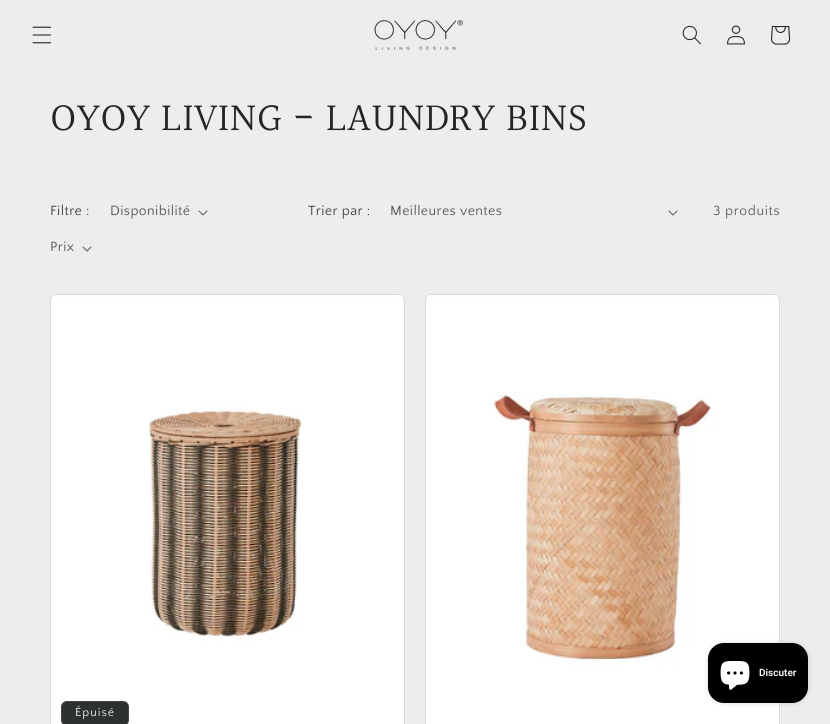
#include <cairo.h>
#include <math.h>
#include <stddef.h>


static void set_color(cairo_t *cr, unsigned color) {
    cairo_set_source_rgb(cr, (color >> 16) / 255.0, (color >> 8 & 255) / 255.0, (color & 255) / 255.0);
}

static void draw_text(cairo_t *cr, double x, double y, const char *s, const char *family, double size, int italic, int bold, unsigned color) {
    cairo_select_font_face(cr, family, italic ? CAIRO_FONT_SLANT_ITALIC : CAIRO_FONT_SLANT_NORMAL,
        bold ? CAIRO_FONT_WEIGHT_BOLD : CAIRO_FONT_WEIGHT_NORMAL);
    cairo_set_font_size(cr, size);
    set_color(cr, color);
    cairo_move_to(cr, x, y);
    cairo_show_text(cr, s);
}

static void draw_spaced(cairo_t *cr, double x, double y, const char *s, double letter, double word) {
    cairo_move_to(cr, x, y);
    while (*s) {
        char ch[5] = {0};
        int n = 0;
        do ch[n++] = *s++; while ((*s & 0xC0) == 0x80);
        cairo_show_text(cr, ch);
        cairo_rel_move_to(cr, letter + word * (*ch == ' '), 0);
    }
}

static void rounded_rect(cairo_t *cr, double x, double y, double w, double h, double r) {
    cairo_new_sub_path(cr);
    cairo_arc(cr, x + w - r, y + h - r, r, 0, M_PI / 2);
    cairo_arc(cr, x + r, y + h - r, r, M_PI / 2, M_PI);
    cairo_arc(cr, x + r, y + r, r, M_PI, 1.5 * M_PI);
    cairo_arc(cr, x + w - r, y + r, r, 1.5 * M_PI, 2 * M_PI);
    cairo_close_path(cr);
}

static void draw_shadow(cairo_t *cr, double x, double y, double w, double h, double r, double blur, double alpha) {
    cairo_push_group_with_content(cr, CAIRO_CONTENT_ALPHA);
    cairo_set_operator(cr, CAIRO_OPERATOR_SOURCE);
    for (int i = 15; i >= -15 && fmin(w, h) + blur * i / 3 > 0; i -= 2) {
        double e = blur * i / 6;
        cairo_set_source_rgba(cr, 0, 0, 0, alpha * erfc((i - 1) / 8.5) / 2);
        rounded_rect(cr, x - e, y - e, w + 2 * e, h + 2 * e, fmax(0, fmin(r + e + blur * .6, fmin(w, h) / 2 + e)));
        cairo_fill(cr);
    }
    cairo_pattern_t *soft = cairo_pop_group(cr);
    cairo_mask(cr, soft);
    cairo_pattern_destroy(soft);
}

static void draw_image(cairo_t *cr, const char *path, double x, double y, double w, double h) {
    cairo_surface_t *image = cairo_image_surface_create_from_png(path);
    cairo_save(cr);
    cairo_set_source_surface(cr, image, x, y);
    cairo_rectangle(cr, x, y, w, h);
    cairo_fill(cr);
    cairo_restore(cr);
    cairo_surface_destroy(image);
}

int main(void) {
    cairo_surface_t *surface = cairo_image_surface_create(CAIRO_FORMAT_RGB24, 830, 724);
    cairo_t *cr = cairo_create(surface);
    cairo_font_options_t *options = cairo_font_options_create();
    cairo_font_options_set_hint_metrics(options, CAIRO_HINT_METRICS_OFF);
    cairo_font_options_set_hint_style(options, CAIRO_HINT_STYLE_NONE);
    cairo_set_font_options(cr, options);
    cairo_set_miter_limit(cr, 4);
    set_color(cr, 0xEFECEC);
    cairo_paint(cr);
    draw_image(cr, "assets/img1.png", 32, 26, 20, 18);
    draw_image(cr, "assets/img2.png", 374, 20, 89, 30);
    draw_image(cr, "assets/img3.png", 682, 25, 19, 20);
    draw_image(cr, "assets/img4.png", 727, 25, 18, 20);
    draw_image(cr, "assets/img5.png", 771, 26, 20, 19);
    cairo_select_font_face(cr, "Halant", CAIRO_FONT_SLANT_NORMAL, CAIRO_FONT_WEIGHT_NORMAL);
    cairo_set_font_size(cr, 40);
    set_color(cr, 0x252525);
    draw_spaced(cr, 50, 132, "OYOY LIVING - LAUNDRY BINS", 0.6, 0);
    cairo_select_font_face(cr, "Quattrocento Sans", CAIRO_FONT_SLANT_NORMAL, CAIRO_FONT_WEIGHT_NORMAL);
    cairo_set_font_size(cr, 14);
    set_color(cr, 0x434343);
    draw_spaced(cr, 50, 215, "Filtre :", 0.4, 0);
    set_color(cr, 0x585757);
    draw_spaced(cr, 110, 215, "Disponibilité", 0.4, 0);
    draw_image(cr, "assets/img6.png", 198, 210, 10, 6);
    draw_spaced(cr, 50, 251, "Prix", 0.4, 0);
    draw_image(cr, "assets/img6.png", 82, 246, 10, 6);
    set_color(cr, 0x434343);
    draw_spaced(cr, 308, 215, "Trier par :", 0.4, 0);
    set_color(cr, 0x585757);
    draw_spaced(cr, 390, 215, "Meilleures ventes", 0.4, 0);
    draw_image(cr, "assets/img6.png", 668, 210, 10, 6);
    set_color(cr, 0x626161);
    draw_spaced(cr, 713, 215, "3 produits", 0.6, 0);
    rounded_rect(cr, 50.5, 294.5, 354, 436, 5.5);
    set_color(cr, 0xDBD8D8);
    cairo_set_line_width(cr, 1);
    cairo_stroke(cr);
    draw_image(cr, "assets/img7.png", 51, 295, 353, 429);
    set_color(cr, 0x2C332F);
    rounded_rect(cr, 61, 701, 68, 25, 6);
    cairo_fill(cr);
    rounded_rect(cr, 61.5, 701.5, 67, 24, 5.5);
    cairo_set_source_rgba(cr, 0.937, 0.925, 0.925, 0.1);
    cairo_stroke(cr);
    cairo_set_font_size(cr, 12);
    set_color(cr, 0xEFECEC);
    draw_spaced(cr, 75, 716, "Épuisé", 1, 0);
    rounded_rect(cr, 425.5, 294.5, 354, 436, 5.5);
    set_color(cr, 0xDBD8D8);
    cairo_stroke(cr);
    draw_image(cr, "assets/img8.png", 426, 295, 353, 429);
    set_color(cr, 0x000000);
    draw_shadow(cr, 708, 643, 100, 60, 16, 2.5, 0.15);
    set_color(cr, 0x000000);
    rounded_rect(cr, 708, 643, 100, 60, 16);
    cairo_fill(cr);
    draw_image(cr, "assets/img9.png", 720, 661, 30, 29);
    draw_text(cr, 759, 676, "Discuter", "Roboto SemiBold", 10, 0, 0, 0xFFFFFF);
    cairo_surface_write_to_png(surface, "output.png");
    cairo_font_options_destroy(options);
    cairo_destroy(cr);
    cairo_surface_destroy(surface);
    return 0;
}
